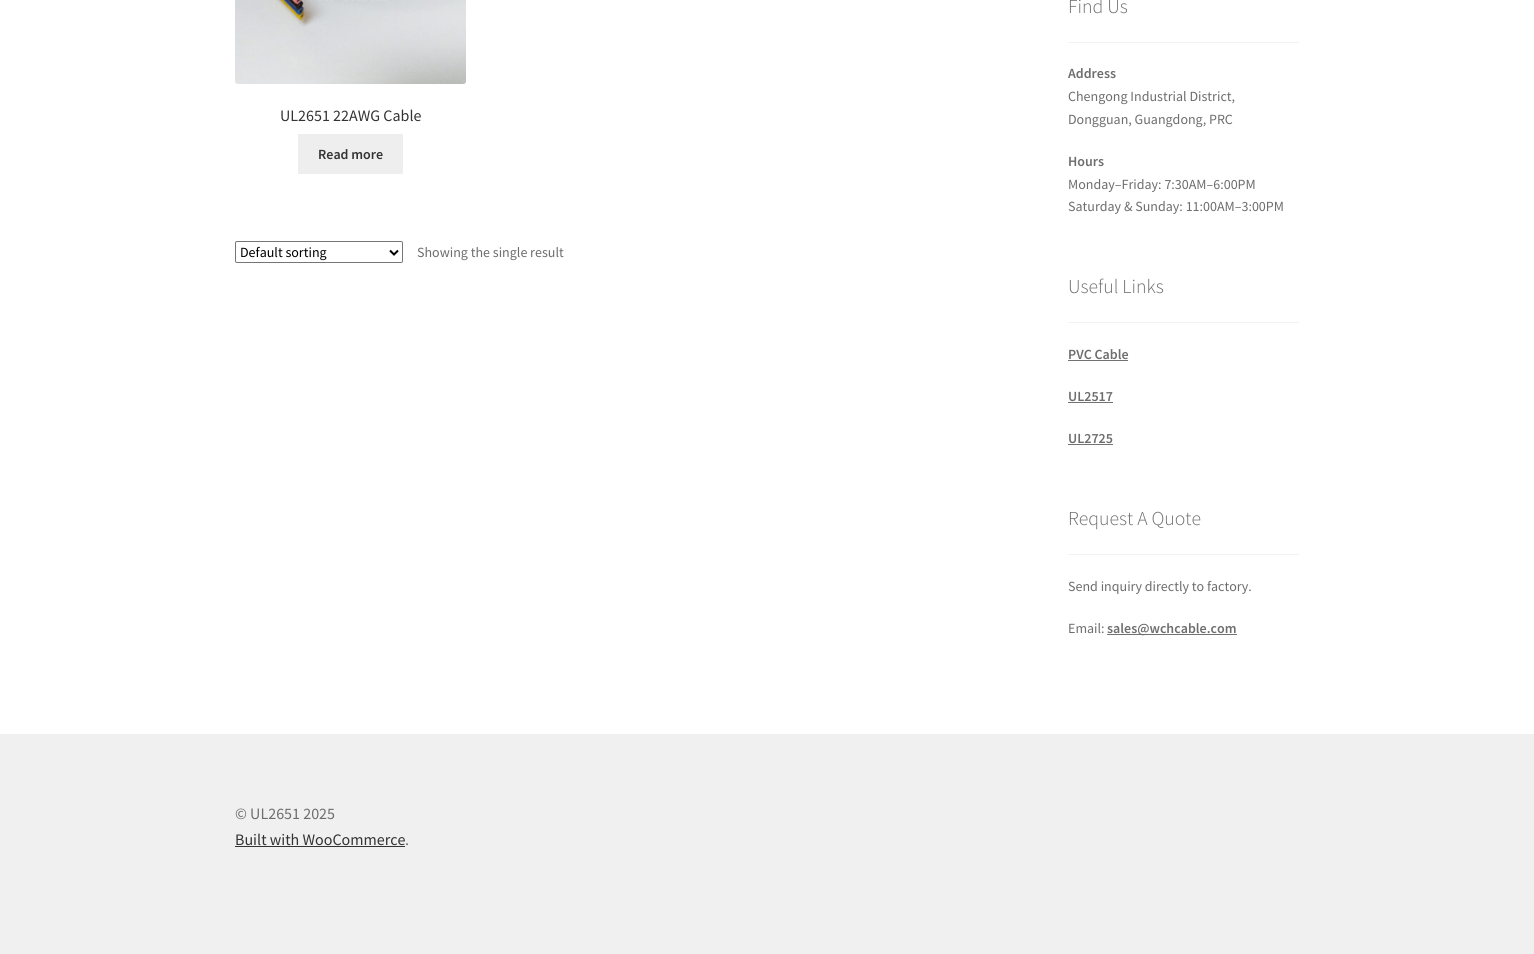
#include <cairo.h>
#include <math.h>
#include <stddef.h>


static void set_color(cairo_t *cr, unsigned color) {
    cairo_set_source_rgb(cr, (color >> 16) / 255.0, (color >> 8 & 255) / 255.0, (color & 255) / 255.0);
}

static void draw_text(cairo_t *cr, double x, double y, const char *s, const char *family, double size, int italic, int bold, unsigned color) {
    cairo_select_font_face(cr, family, italic ? CAIRO_FONT_SLANT_ITALIC : CAIRO_FONT_SLANT_NORMAL,
        bold ? CAIRO_FONT_WEIGHT_BOLD : CAIRO_FONT_WEIGHT_NORMAL);
    cairo_set_font_size(cr, size);
    set_color(cr, color);
    cairo_move_to(cr, x, y);
    cairo_show_text(cr, s);
}

static void fill_rect(cairo_t *cr, double x, double y, double w, double h, unsigned color) {
    set_color(cr, color);
    cairo_rectangle(cr, x, y, w, h);
    cairo_fill(cr);
}

static void rounded_rect(cairo_t *cr, double x, double y, double w, double h, double r) {
    cairo_new_sub_path(cr);
    cairo_arc(cr, x + w - r, y + h - r, r, 0, M_PI / 2);
    cairo_arc(cr, x + r, y + h - r, r, M_PI / 2, M_PI);
    cairo_arc(cr, x + r, y + r, r, M_PI, 1.5 * M_PI);
    cairo_arc(cr, x + w - r, y + r, r, 1.5 * M_PI, 2 * M_PI);
    cairo_close_path(cr);
}

static void draw_image(cairo_t *cr, const char *path, double x, double y, double w, double h) {
    cairo_surface_t *image = cairo_image_surface_create_from_png(path);
    cairo_save(cr);
    cairo_set_source_surface(cr, image, x, y);
    cairo_rectangle(cr, x, y, w, h);
    cairo_fill(cr);
    cairo_restore(cr);
    cairo_surface_destroy(image);
}

int main(void) {
    cairo_surface_t *surface = cairo_image_surface_create(CAIRO_FORMAT_RGB24, 1534, 954);
    cairo_t *cr = cairo_create(surface);
    cairo_font_options_t *options = cairo_font_options_create();
    cairo_font_options_set_hint_metrics(options, CAIRO_HINT_METRICS_OFF);
    cairo_font_options_set_hint_style(options, CAIRO_HINT_STYLE_NONE);
    cairo_set_font_options(cr, options);
    cairo_set_miter_limit(cr, 4);
    set_color(cr, 0xFFFFFF);
    cairo_paint(cr);
    draw_image(cr, "assets/img1.png", 235, 0, 231, 84);
    draw_text(cr, 280, 121, "UL2651 22AWG Cable", "Source Sans Pro", 16, 0, 0, 0x333333);
    fill_rect(cr, 298, 134, 105, 40, 0xEEEEEE);
    draw_text(cr, 318, 159, "Read more", "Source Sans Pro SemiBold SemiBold", 14, 0, 0, 0x333333);
    rounded_rect(cr, 235.5, 241.5, 167, 21, 1.5);
    set_color(cr, 0x767676);
    cairo_set_line_width(cr, 1);
    cairo_stroke(cr);
    cairo_new_path(cr);
    cairo_move_to(cr, 390, 250.5);
    cairo_line_to(cr, 394, 254.5);
    cairo_line_to(cr, 398, 250.5);
    set_color(cr, 0x000000);
    cairo_set_line_width(cr, 2);
    cairo_stroke(cr);
    draw_text(cr, 240, 257, "Default sorting", "Source Sans Pro", 14, 0, 0, 0x000000);
    draw_text(cr, 417, 257, "Showing the single result", "Source Sans Pro", 14, 0, 0, 0x6D6D6D);
    fill_rect(cr, 1068, 42, 231, 1, 0xF2F2F2);
    draw_text(cr, 1068, 13, "Find Us", "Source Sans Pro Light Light", 19.75, 0, 0, 0x6D6D6D);
    draw_text(cr, 1068, 78, "Address", "Source Sans Pro SemiBold SemiBold", 14, 0, 0, 0x6D6D6D);
    draw_text(cr, 1068, 101, "Chengong Industrial District,", "Source Sans Pro", 14, 0, 0, 0x6D6D6D);
    draw_text(cr, 1068, 124, "Dongguan, Guangdong, PRC", "Source Sans Pro", 14, 0, 0, 0x6D6D6D);
    draw_text(cr, 1068, 166, "Hours", "Source Sans Pro SemiBold SemiBold", 14, 0, 0, 0x6D6D6D);
    draw_text(cr, 1068, 189, "Monday–Friday: 7:30AM–6:00PM", "Source Sans Pro", 14, 0, 0, 0x6D6D6D);
    draw_text(cr, 1068, 211, "Saturday & Sunday: 11:00AM–3:00PM", "Source Sans Pro", 14, 0, 0, 0x6D6D6D);
    fill_rect(cr, 1068, 322, 231, 1, 0xF2F2F2);
    draw_text(cr, 1068, 293, "Useful Links", "Source Sans Pro Light Light", 19.75, 0, 0, 0x6D6D6D);
    draw_text(cr, 1068, 359, "PVC Cable", "Source Sans Pro SemiBold SemiBold", 14, 0, 0, 0x6D6D6D);
    fill_rect(cr, 1068, 360, 60, 1, 0x727272);
    draw_text(cr, 1068, 401, "UL2517", "Source Sans Pro SemiBold SemiBold", 14, 0, 0, 0x6D6D6D);
    fill_rect(cr, 1068, 402, 45, 1, 0x727272);
    draw_text(cr, 1068, 443, "UL2725", "Source Sans Pro SemiBold SemiBold", 14, 0, 0, 0x6D6D6D);
    fill_rect(cr, 1068, 444, 45, 1, 0x727272);
    fill_rect(cr, 1068, 554, 231, 1, 0xF2F2F2);
    draw_text(cr, 1068, 525, "Request A Quote", "Source Sans Pro Light Light", 19.75, 0, 0, 0x6D6D6D);
    draw_text(cr, 1068, 591, "Send inquiry directly to factory.", "Source Sans Pro", 14, 0, 0, 0x6D6D6D);
    draw_text(cr, 1068, 633, "Email:", "Source Sans Pro", 14, 0, 0, 0x6D6D6D);
    fill_rect(cr, 1107, 634, 130, 1, 0x727272);
    draw_text(cr, 1107, 633, "sales@wchcable.com", "Source Sans Pro SemiBold SemiBold", 14, 0, 0, 0x6D6D6D);
    fill_rect(cr, 0, 734, 1534, 220, 0xF0F0F0);
    draw_text(cr, 235, 819, "© UL2651 2025", "Source Sans Pro", 16, 0, 0, 0x6D6D6D);
    draw_text(cr, 235, 845, "Built with WooCommerce", "Source Sans Pro", 16, 0, 0, 0x333333);
    fill_rect(cr, 235, 846, 170, 1, 0x333333);
    draw_text(cr, 405, 845, ".", "Source Sans Pro", 16, 0, 0, 0x6D6D6D);
    cairo_surface_write_to_png(surface, "output.png");
    cairo_font_options_destroy(options);
    cairo_destroy(cr);
    cairo_surface_destroy(surface);
    return 0;
}
